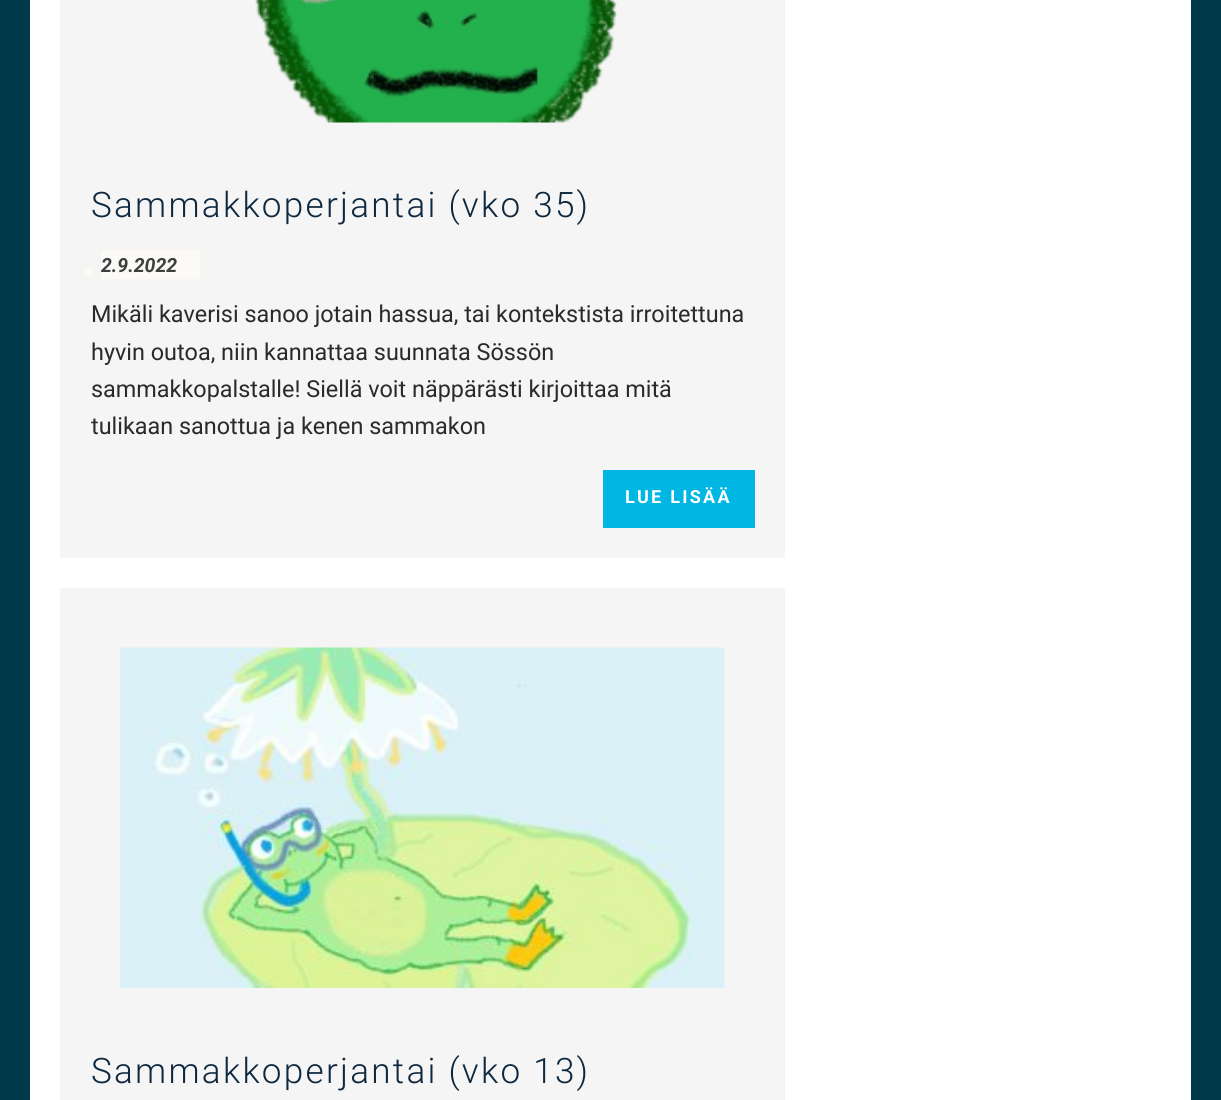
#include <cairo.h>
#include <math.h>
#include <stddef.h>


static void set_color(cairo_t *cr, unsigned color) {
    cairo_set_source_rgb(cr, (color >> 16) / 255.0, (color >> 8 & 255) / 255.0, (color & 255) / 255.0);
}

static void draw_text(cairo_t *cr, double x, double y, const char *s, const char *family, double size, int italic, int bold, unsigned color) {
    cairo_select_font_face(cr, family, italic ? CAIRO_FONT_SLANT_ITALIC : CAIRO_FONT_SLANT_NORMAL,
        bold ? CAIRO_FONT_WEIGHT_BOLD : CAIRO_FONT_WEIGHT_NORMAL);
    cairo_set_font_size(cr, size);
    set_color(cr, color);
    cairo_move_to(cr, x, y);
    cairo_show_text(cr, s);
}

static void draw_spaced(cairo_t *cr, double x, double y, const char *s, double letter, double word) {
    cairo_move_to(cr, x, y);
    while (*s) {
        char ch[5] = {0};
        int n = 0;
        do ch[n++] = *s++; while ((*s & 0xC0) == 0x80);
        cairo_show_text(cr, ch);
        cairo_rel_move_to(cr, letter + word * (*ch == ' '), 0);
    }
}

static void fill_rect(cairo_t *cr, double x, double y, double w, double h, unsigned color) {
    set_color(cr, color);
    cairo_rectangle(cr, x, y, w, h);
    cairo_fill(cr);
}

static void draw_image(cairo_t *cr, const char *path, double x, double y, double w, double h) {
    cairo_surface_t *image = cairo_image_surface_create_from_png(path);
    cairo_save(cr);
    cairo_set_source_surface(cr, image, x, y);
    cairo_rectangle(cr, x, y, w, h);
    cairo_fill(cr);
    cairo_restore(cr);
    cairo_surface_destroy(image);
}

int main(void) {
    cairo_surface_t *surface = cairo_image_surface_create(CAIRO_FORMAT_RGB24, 1221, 1100);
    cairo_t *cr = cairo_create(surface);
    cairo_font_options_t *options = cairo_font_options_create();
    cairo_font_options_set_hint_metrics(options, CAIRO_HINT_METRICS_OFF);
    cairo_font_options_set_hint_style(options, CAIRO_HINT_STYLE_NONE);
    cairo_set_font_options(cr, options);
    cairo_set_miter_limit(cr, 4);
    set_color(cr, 0x003A49);
    cairo_paint(cr);
    fill_rect(cr, 30, 0, 1161, 1100, 0xFFFFFF);
    fill_rect(cr, 60, 0, 725, 558, 0xF5F5F5);
    draw_image(cr, "assets/img1.png", 255, 0, 363, 123);
    cairo_select_font_face(cr, "Roboto Light", CAIRO_FONT_SLANT_NORMAL, CAIRO_FONT_WEIGHT_NORMAL);
    cairo_set_font_size(cr, 35.1);
    set_color(cr, 0x0E283F);
    draw_spaced(cr, 91, 217, "Sammakkoperjantai (vko 35)", 2.25, 0);
    fill_rect(cr, 101, 251, 99, 28, 0xFBFAF7);
    draw_text(cr, 101, 272, "2.9.2022", "Roboto", 19.5, 1, 1, 0x3F3F3F);
    fill_rect(cr, 86, 269, 7, 6, 0xFBFAF7);
    fill_rect(cr, 84, 267, 9, 2, 0xF9F6F2);
    fill_rect(cr, 84, 275, 9, 2, 0xF9F6F2);
    fill_rect(cr, 84, 267, 2, 9, 0xF9F6F2);
    fill_rect(cr, 101, 249, 100, 2, 0xF9F6F2);
    fill_rect(cr, 200, 249, 2, 32, 0xF9F6F2);
    fill_rect(cr, 101, 279, 100, 2, 0xF9F6F2);
    draw_text(cr, 91, 322, "Mikäli kaverisi sanoo jotain hassua, tai kontekstista irroitettuna", "Roboto", 23.4, 0, 0, 0x2A2A2A);
    draw_text(cr, 91, 360, "hyvin outoa, niin kannattaa suunnata Sössön", "Roboto", 23.4, 0, 0, 0x2A2A2A);
    draw_text(cr, 91, 397, "sammakkopalstalle! Siellä voit näppärästi kirjoittaa mitä", "Roboto", 23.4, 0, 0, 0x2A2A2A);
    draw_text(cr, 91, 434, "tulikaan sanottua ja kenen sammakon", "Roboto", 23.4, 0, 0, 0x2A2A2A);
    fill_rect(cr, 603, 470, 152, 58, 0x00B6E3);
    cairo_select_font_face(cr, "Roboto", CAIRO_FONT_SLANT_NORMAL, CAIRO_FONT_WEIGHT_BOLD);
    cairo_set_font_size(cr, 18);
    set_color(cr, 0xFFFFFF);
    draw_spaced(cr, 625, 503, "LUE LISÄÄ", 2.25, 0);
    fill_rect(cr, 60, 588, 725, 512, 0xF5F5F5);
    draw_image(cr, "assets/img2.png", 120, 647, 605, 341);
    cairo_select_font_face(cr, "Roboto Light", CAIRO_FONT_SLANT_NORMAL, CAIRO_FONT_WEIGHT_NORMAL);
    cairo_set_font_size(cr, 35.1);
    set_color(cr, 0x0E283F);
    draw_spaced(cr, 91, 1083, "Sammakkoperjantai (vko 13)", 2.25, 0);
    cairo_surface_write_to_png(surface, "output.png");
    cairo_font_options_destroy(options);
    cairo_destroy(cr);
    cairo_surface_destroy(surface);
    return 0;
}
